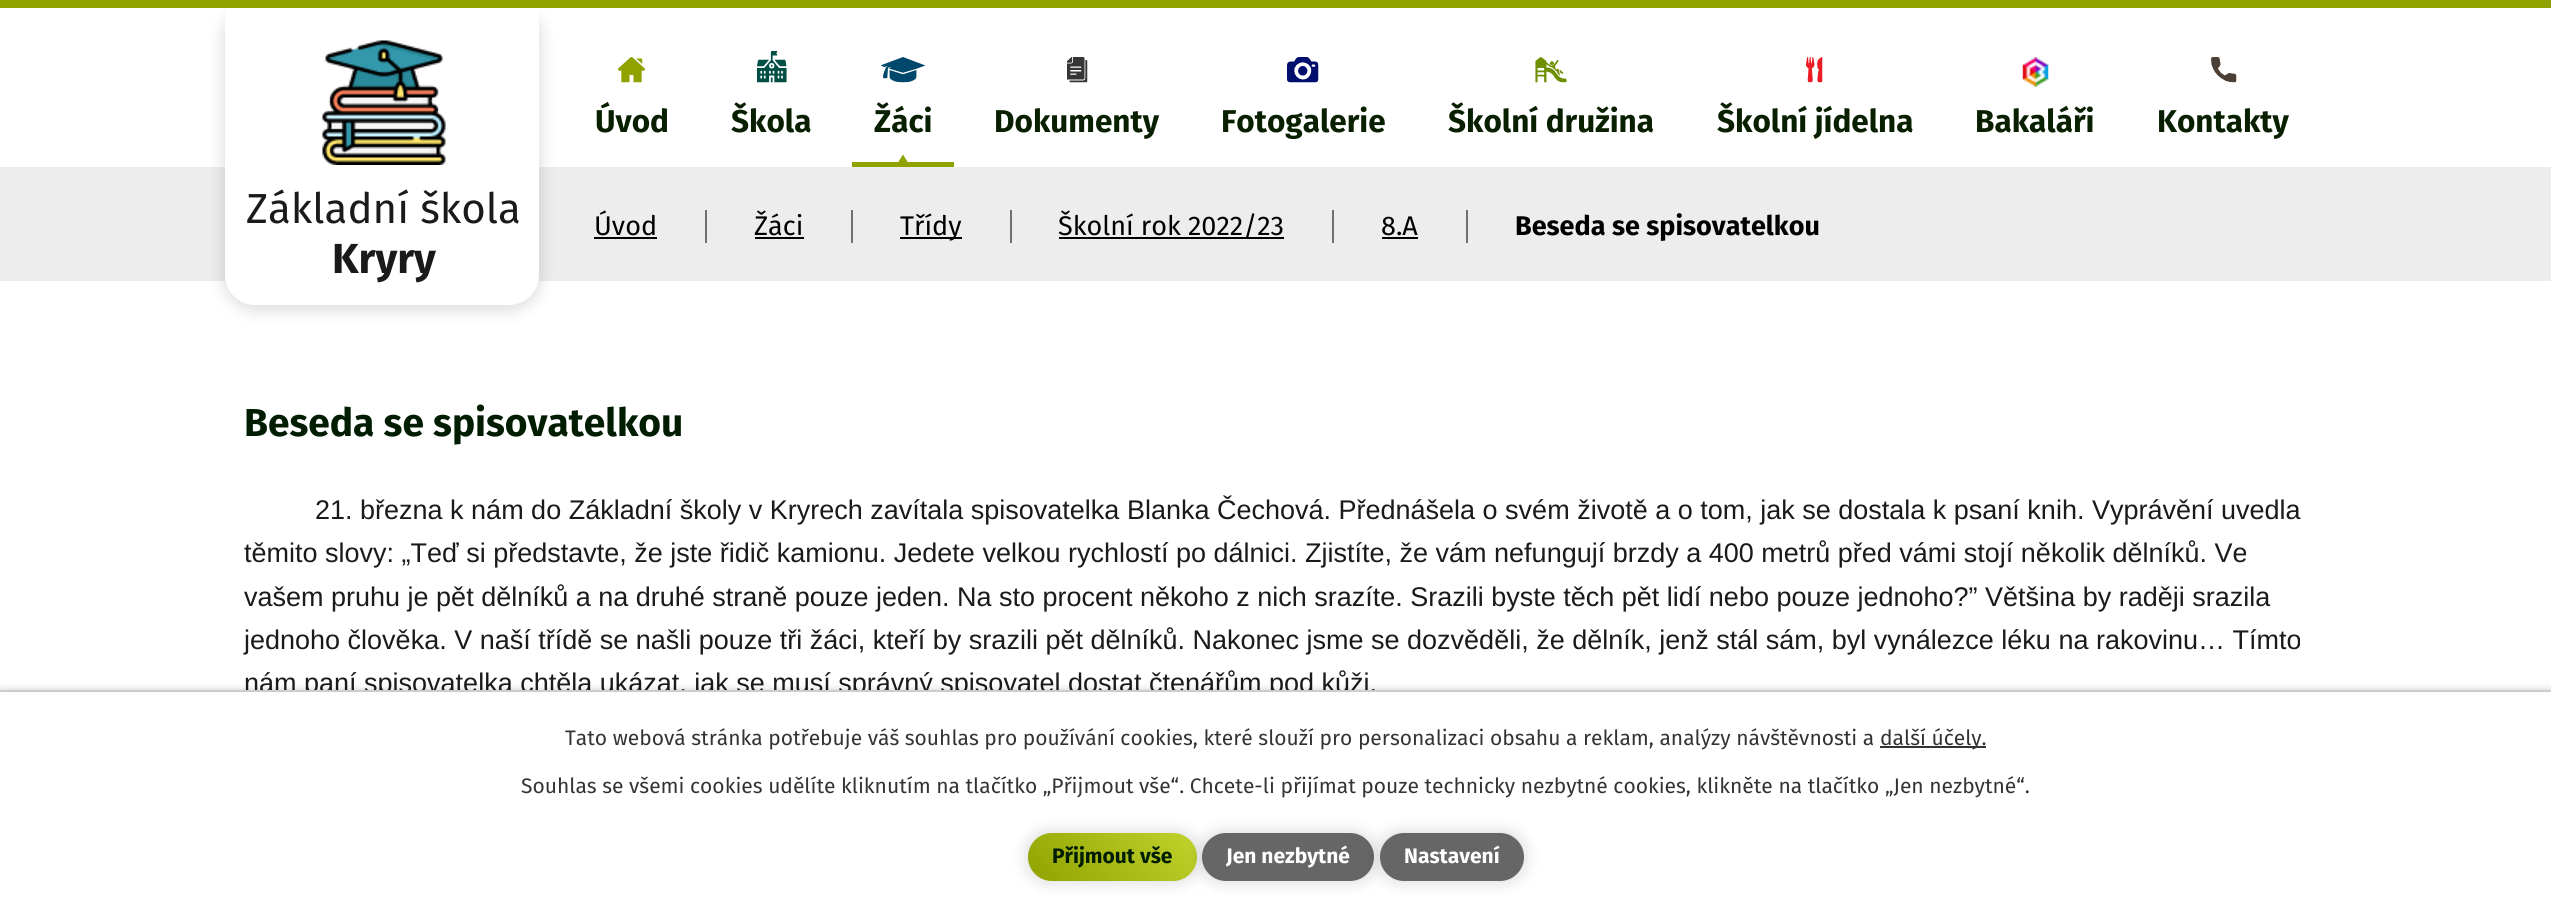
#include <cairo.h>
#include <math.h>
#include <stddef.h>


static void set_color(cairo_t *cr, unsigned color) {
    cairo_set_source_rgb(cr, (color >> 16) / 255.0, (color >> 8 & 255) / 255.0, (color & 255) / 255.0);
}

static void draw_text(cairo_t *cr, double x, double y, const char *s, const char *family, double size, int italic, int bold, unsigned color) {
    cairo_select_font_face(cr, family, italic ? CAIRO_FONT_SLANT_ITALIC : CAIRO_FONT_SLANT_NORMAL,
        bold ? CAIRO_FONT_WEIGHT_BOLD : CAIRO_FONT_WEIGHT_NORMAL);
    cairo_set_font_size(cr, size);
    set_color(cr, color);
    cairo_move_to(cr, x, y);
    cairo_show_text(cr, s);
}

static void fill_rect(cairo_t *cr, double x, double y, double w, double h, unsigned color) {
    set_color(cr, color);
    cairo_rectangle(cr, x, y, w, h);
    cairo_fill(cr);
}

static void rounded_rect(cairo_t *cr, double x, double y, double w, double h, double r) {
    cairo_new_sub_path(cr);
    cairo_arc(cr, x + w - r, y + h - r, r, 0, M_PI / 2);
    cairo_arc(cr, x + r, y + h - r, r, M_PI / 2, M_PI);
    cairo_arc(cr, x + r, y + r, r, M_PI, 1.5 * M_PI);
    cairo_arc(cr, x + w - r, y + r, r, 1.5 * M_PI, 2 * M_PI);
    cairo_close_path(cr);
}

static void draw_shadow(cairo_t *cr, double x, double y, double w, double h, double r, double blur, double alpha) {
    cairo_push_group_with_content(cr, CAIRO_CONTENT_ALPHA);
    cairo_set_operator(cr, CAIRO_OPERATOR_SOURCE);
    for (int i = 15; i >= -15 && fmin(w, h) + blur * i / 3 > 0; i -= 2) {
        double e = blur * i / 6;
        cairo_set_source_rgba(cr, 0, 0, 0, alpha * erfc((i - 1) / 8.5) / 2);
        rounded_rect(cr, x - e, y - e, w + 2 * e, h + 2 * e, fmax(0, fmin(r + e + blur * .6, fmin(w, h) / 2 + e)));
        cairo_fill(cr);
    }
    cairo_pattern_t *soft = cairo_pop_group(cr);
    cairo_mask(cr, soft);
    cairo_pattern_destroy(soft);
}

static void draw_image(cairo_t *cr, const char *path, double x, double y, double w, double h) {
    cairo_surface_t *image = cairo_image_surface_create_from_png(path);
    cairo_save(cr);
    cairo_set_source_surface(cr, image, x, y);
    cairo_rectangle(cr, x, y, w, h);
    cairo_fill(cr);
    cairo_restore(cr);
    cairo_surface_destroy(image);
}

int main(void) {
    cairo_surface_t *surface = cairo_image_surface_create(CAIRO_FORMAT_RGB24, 2551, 908);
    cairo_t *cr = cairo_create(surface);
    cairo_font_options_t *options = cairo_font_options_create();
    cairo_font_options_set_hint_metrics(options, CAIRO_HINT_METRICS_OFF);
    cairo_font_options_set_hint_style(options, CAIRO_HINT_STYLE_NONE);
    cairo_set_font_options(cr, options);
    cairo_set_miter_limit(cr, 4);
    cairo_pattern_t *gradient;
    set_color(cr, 0xFFFFFF);
    cairo_paint(cr);
    draw_image(cr, "assets/img1.png", 618, 57, 27, 26);
    draw_text(cr, 595, 132, "Úvod", "Fira Sans", 31.5, 0, 1, 0x082000);
    draw_image(cr, "assets/img2.png", 757, 51, 30, 32);
    draw_text(cr, 731, 132, "Škola", "Fira Sans", 31.5, 0, 1, 0x082000);
    draw_image(cr, "assets/img3.png", 881, 57, 45, 26);
    draw_text(cr, 874, 132, "Žáci", "Fira Sans", 31.5, 0, 1, 0x082000);
    set_color(cr, 0x8FA200);
    cairo_new_path(cr);
    cairo_move_to(cr, 910.5, 166.5);
    cairo_line_to(cr, 895.5, 166.5);
    cairo_line_to(cr, 903, 154.5);
    cairo_close_path(cr);
    cairo_fill(cr);
    fill_rect(cr, 852, 162, 102, 5, 0x8FA200);
    draw_image(cr, "assets/img4.png", 1067, 57, 21, 26);
    draw_text(cr, 994, 132, "Dokumenty", "Fira Sans", 31.5, 0, 1, 0x082000);
    draw_image(cr, "assets/img5.png", 1287, 57, 32, 26);
    draw_text(cr, 1221, 132, "Fotogalerie", "Fira Sans", 31.5, 0, 1, 0x082000);
    draw_image(cr, "assets/img6.png", 1535, 57, 32, 26);
    draw_text(cr, 1448, 132, "Školní družina", "Fira Sans", 31.5, 0, 1, 0x082000);
    draw_image(cr, "assets/img7.png", 1806, 57, 17, 26);
    draw_text(cr, 1717, 132, "Školní jídelna", "Fira Sans", 31.5, 0, 1, 0x082000);
    draw_image(cr, "assets/img8.png", 2022, 57, 27, 30);
    draw_text(cr, 1975, 132, "Bakaláři", "Fira Sans", 31.5, 0, 1, 0x082000);
    draw_image(cr, "assets/img9.png", 2211, 57, 26, 26);
    draw_text(cr, 2157, 132, "Kontakty", "Fira Sans", 31.5, 0, 1, 0x082000);
    fill_rect(cr, 0, 167, 2551, 114, 0xEDEDED);
    set_color(cr, 0x000000);
    draw_shadow(cr, 225, 5, 314, 304, 30, 9, 0.16);
    set_color(cr, 0xFFFFFF);
    cairo_new_path(cr);
    cairo_move_to(cr, 225, 0);
    cairo_line_to(cr, 539, 0);
    cairo_line_to(cr, 539, 275);
    cairo_curve_to(cr, 539, 291.5, 525.5, 305, 509, 305);
    cairo_line_to(cr, 255, 305);
    cairo_curve_to(cr, 238.5, 305, 225, 291.5, 225, 275);
    cairo_close_path(cr);
    cairo_fill(cr);
    fill_rect(cr, 0, 0, 2551, 8, 0x8FA200);
    draw_image(cr, "assets/img10.png", 322, 40, 124, 125);
    draw_text(cr, 246, 223, "Základní škola", "Fira Sans", 42, 0, 0, 0x1A1A1A);
    draw_text(cr, 332, 273, "Kryry", "Fira Sans", 42, 0, 1, 0x1A1A1A);
    draw_text(cr, 594, 235, "Úvod", "Fira Sans", 27, 0, 0, 0x000000);
    fill_rect(cr, 594, 237, 63, 2, 0x000000);
    fill_rect(cr, 705, 210, 2, 33, 0x707070);
    draw_text(cr, 754, 235, "Žáci", "Fira Sans", 27, 0, 0, 0x000000);
    fill_rect(cr, 755, 237, 49, 2, 0x000000);
    fill_rect(cr, 851, 210, 2, 33, 0x707070);
    fill_rect(cr, 900, 237, 62, 2, 0x000000);
    draw_text(cr, 900, 235, "Třídy", "Fira Sans", 27, 0, 0, 0x000000);
    fill_rect(cr, 1010, 210, 2, 33, 0x707070);
    fill_rect(cr, 1059, 237, 225, 2, 0x000000);
    draw_text(cr, 1058, 235, "Školní rok 2022/23", "Fira Sans", 27, 0, 0, 0x000000);
    fill_rect(cr, 1332, 210, 2, 33, 0x707070);
    draw_text(cr, 1381, 235, "8.A", "Fira Sans", 27, 0, 0, 0x000000);
    fill_rect(cr, 1382, 237, 36, 2, 0x000000);
    fill_rect(cr, 1466, 210, 2, 33, 0x707070);
    draw_text(cr, 1515, 235, "Beseda se spisovatelkou", "Fira Sans", 27, 0, 1, 0x000000);
    draw_text(cr, 244, 436, "Beseda se spisovatelkou", "Fira Sans", 38.9, 0, 1, 0x001D01);
    draw_text(cr, 315, 519, "21. března k nám do Základní školy v Kryrech zavítala spisovatelka Blanka Čechová. Přednášela o svém životě a o tom, jak se dostala k psaní knih. Vyprávění uvedla", "Liberation Sans", 27, 0, 0, 0x1A1A1A);
    draw_text(cr, 244, 562, "těmito slovy: „Teď si představte, že jste řidič kamionu. Jedete velkou rychlostí po dálnici. Zjistíte, že vám nefungují brzdy a 400 metrů před vámi stojí několik dělníků. Ve", "Liberation Sans", 27, 0, 0, 0x1A1A1A);
    draw_text(cr, 244, 606, "vašem pruhu je pět dělníků a na druhé straně pouze jeden. Na sto procent někoho z nich srazíte. Srazili byste těch pět lidí nebo pouze jednoho?” Většina by raději srazila", "Liberation Sans", 27, 0, 0, 0x1A1A1A);
    draw_text(cr, 244, 649, "jednoho člověka. V naší třídě se našli pouze tři žáci, kteří by srazili pět dělníků. Nakonec jsme se dozvěděli, že dělník, jenž stál sám, byl vynálezce léku na rakovinu… Tímto", "Liberation Sans", 27, 0, 0, 0x1A1A1A);
    draw_text(cr, 244, 692, "nám paní spisovatelka chtěla ukázat, jak se musí správný spisovatel dostat čtenářům pod kůži.", "Liberation Sans", 27, 0, 0, 0x1A1A1A);
    set_color(cr, 0x000000);
    draw_shadow(cr, 0, 690, 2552, 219, 0, 4, 0.2);
    fill_rect(cr, 0, 692, 2551, 216, 0xFFFFFF);
    fill_rect(cr, 0, 690, 2551, 2, 0xCCCCCC);
    draw_text(cr, 565, 745, "Tato webová stránka potřebuje váš souhlas pro používání cookies, které slouží pro personalizaci obsahu a reklam, analýzy návštěvnosti a", "Fira Sans", 21, 0, 0, 0x333333);
    fill_rect(cr, 1880, 746, 106, 2, 0x333333);
    draw_text(cr, 1880, 745, "další účely.", "Fira Sans", 21, 0, 0, 0x333333);
    draw_text(cr, 521, 793, "Souhlas se všemi cookies udělíte kliknutím na tlačítko „Přijmout vše“. Chcete-li přijímat pouze technicky nezbytné cookies, klikněte na tlačítko „Jen nezbytné“.", "Fira Sans", 21, 0, 0, 0x333333);
    set_color(cr, 0x000000);
    draw_shadow(cr, 1028, 833, 169, 48, 24, 9, 0.16);
    gradient = cairo_pattern_create_linear(1058, 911, 1167, 802);
    cairo_pattern_add_color_stop_rgba(gradient, 0, 0.561, 0.635, 0, 1);
    cairo_pattern_add_color_stop_rgba(gradient, 1, 0.757, 0.831, 0.176, 1);
    cairo_set_source(cr, gradient);
    cairo_pattern_destroy(gradient);
    rounded_rect(cr, 1028, 833, 169, 48, 24);
    cairo_fill(cr);
    draw_text(cr, 1052, 863, "Přijmout vše", "Fira Sans", 21, 0, 1, 0x001D01);
    set_color(cr, 0x000000);
    draw_shadow(cr, 1202, 833, 172, 48, 24, 9, 0.16);
    set_color(cr, 0x666666);
    rounded_rect(cr, 1202, 833, 172, 48, 24);
    cairo_fill(cr);
    draw_text(cr, 1226, 863, "Jen nezbytné", "Fira Sans", 21, 0, 1, 0xFFFFFF);
    set_color(cr, 0x000000);
    draw_shadow(cr, 1380, 833, 144, 48, 24, 9, 0.16);
    set_color(cr, 0x666666);
    rounded_rect(cr, 1380, 833, 144, 48, 24);
    cairo_fill(cr);
    draw_text(cr, 1404, 863, "Nastavení", "Fira Sans", 21, 0, 1, 0xFFFFFF);
    cairo_surface_write_to_png(surface, "output.png");
    cairo_font_options_destroy(options);
    cairo_destroy(cr);
    cairo_surface_destroy(surface);
    return 0;
}
